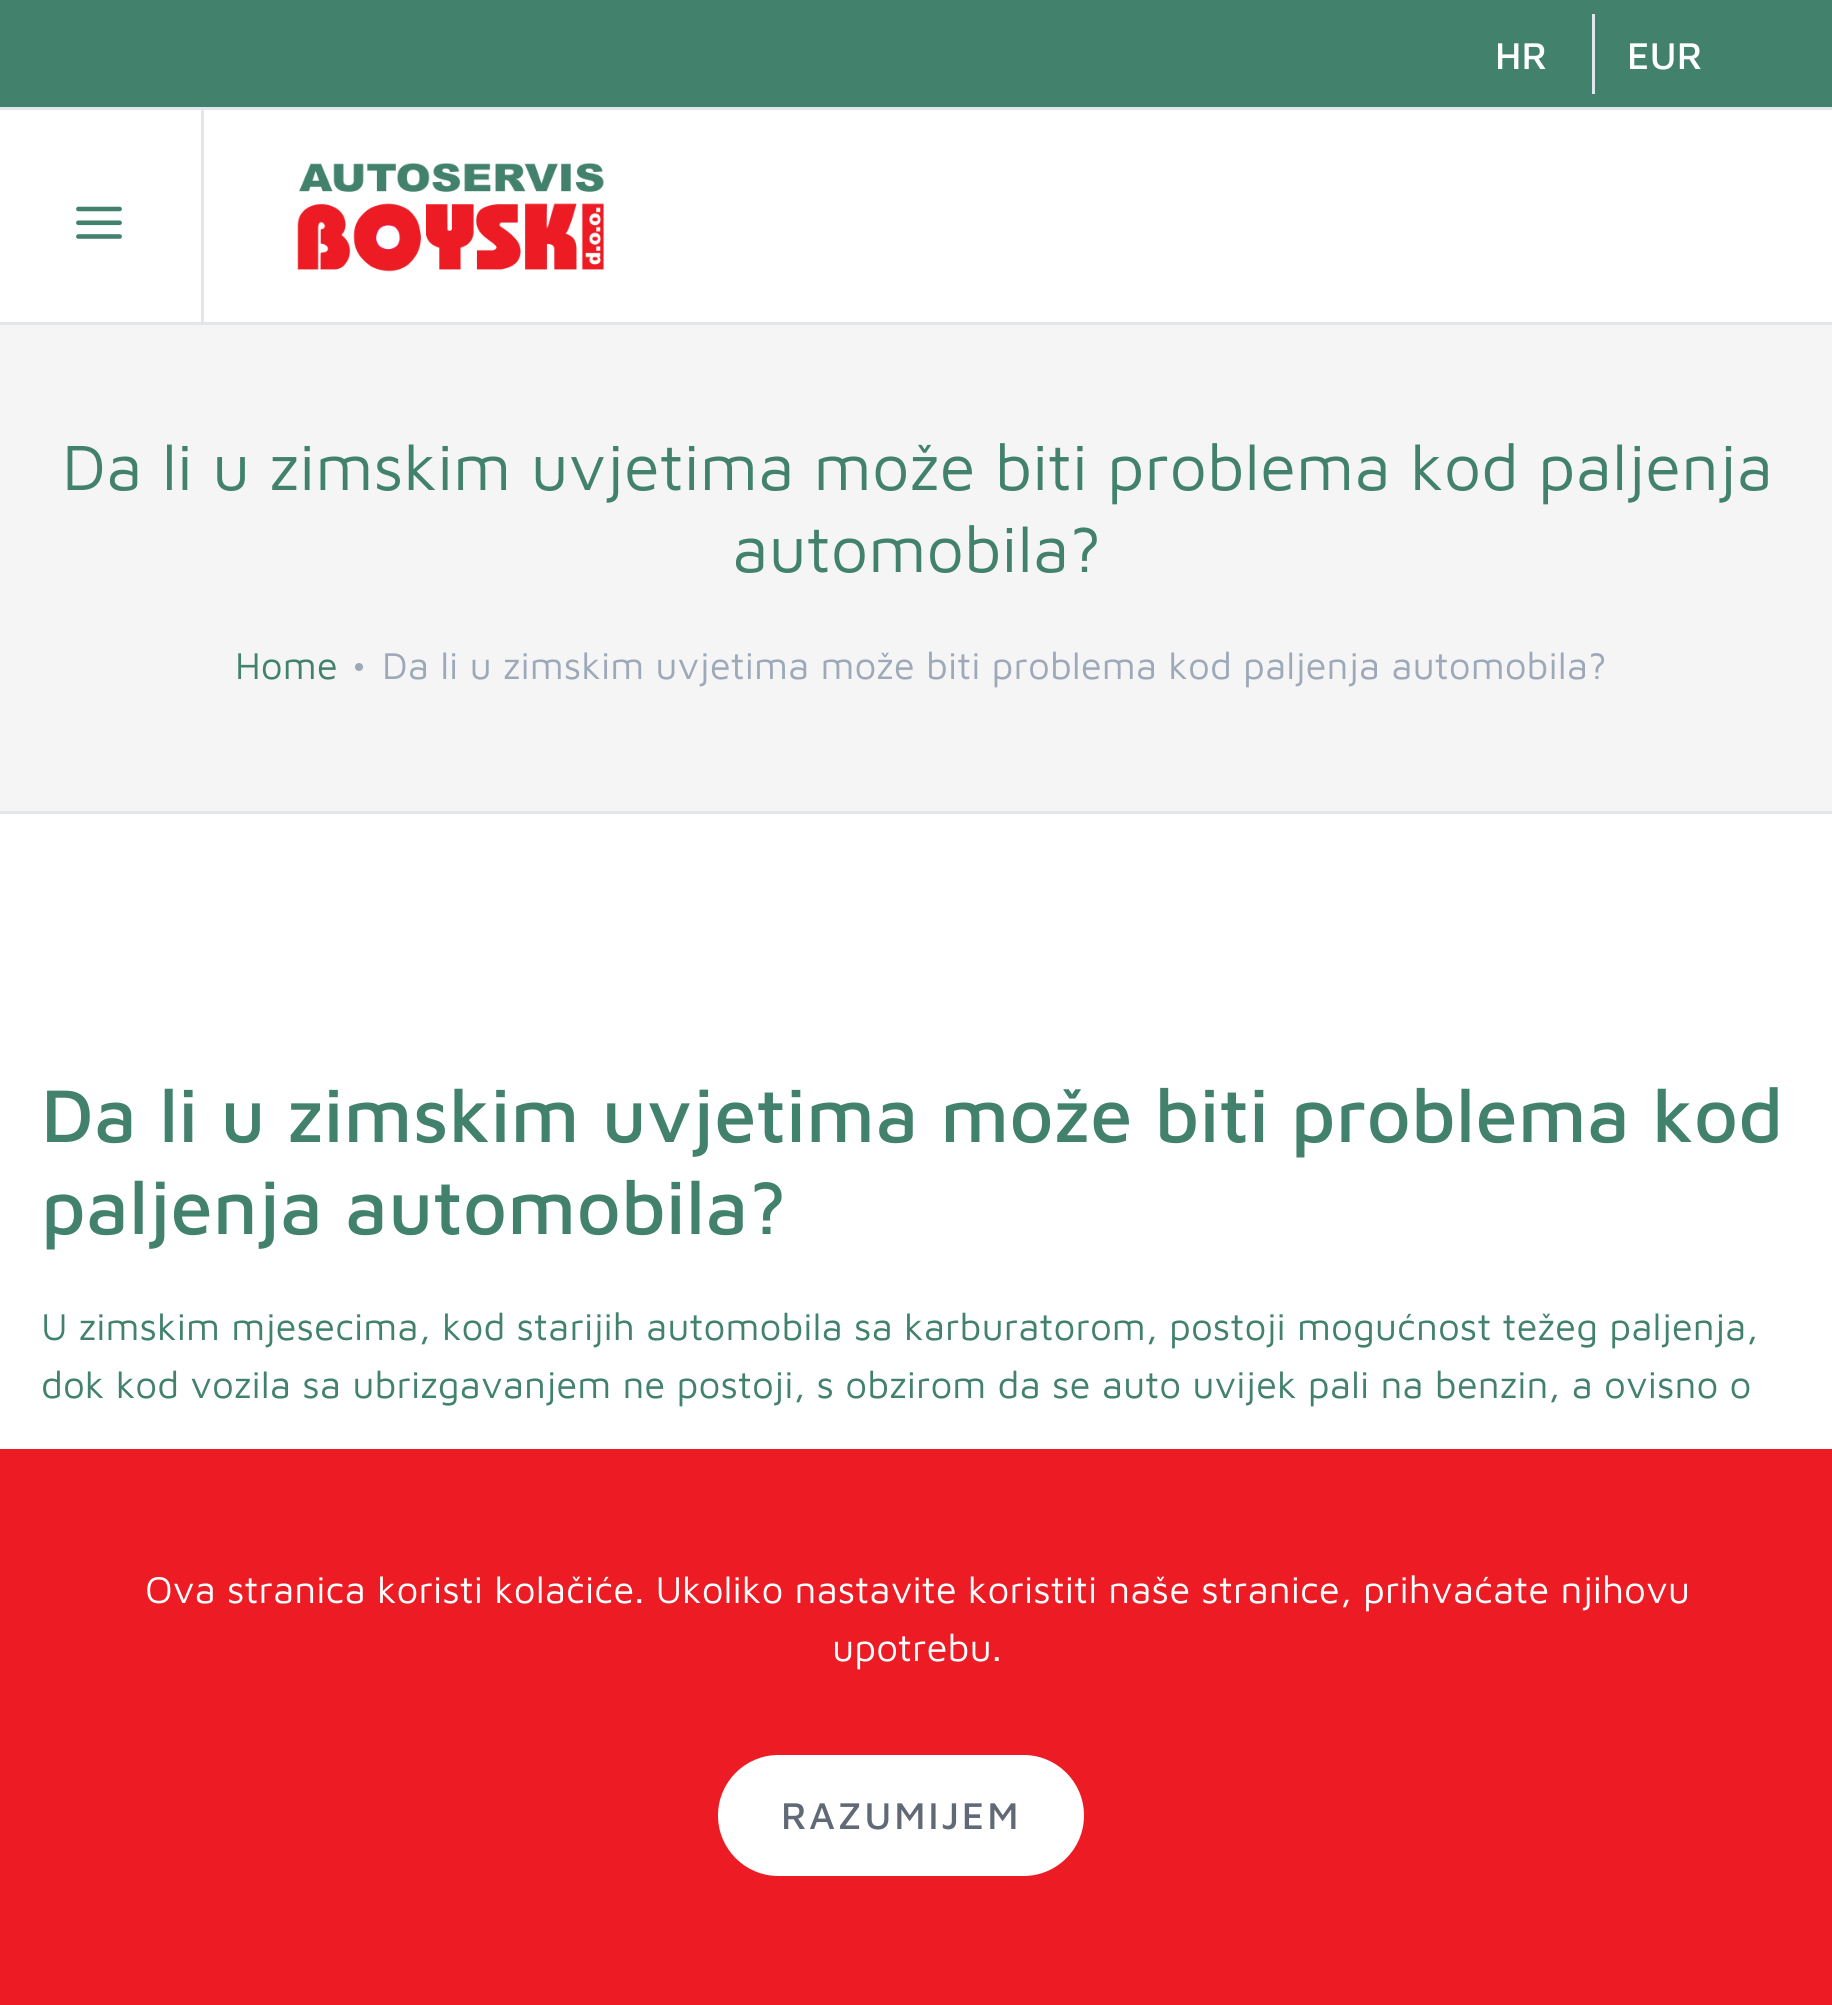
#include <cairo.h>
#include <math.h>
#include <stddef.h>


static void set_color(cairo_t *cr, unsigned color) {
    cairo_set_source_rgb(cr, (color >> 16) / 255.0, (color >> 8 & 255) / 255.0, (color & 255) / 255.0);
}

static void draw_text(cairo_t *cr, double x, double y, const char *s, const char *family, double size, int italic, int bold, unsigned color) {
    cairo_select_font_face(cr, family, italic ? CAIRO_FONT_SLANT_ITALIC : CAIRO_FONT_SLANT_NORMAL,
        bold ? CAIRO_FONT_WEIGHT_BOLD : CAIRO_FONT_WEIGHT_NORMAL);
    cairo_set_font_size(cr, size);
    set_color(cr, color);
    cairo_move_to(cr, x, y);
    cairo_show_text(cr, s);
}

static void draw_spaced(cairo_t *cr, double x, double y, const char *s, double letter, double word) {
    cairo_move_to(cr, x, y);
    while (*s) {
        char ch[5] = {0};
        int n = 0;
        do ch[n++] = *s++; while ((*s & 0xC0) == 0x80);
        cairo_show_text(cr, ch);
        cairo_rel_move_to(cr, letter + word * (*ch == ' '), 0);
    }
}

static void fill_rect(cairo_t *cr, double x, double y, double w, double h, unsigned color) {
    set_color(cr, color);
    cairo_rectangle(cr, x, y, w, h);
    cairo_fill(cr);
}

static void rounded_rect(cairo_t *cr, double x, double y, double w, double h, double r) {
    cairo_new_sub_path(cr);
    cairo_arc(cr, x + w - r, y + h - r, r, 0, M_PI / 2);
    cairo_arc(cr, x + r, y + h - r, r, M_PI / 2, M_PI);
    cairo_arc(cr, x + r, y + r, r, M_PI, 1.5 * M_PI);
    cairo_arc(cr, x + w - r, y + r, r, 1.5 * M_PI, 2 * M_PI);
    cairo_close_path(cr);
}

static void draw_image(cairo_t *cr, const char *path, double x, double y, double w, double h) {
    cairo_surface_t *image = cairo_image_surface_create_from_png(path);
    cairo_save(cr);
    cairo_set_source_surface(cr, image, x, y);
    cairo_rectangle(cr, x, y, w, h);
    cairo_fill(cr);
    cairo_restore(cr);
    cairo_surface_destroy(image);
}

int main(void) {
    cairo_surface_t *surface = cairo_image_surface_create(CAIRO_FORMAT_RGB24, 1832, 2005);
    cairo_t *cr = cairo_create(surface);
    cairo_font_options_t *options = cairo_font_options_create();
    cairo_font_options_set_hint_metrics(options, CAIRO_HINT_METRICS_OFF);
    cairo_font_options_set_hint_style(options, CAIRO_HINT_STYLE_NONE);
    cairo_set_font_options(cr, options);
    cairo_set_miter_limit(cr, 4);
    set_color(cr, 0xFFFFFF);
    cairo_paint(cr);
    fill_rect(cr, 0, 0, 1832, 107, 0x42826C);
    fill_rect(cr, 0, 107, 1832, 3, 0xE1E7EC);
    draw_text(cr, 1495, 69, "HR", "Maven Pro Medium", 38.5, 0, 0, 0xFFFFFF);
    fill_rect(cr, 1592, 14, 3, 80, 0xE1E7EC);
    draw_text(cr, 1627, 69, "EUR", "Maven Pro Medium", 38.5, 0, 0, 0xFFFFFF);
    fill_rect(cr, 0, 322, 1832, 3, 0xE1E7EC);
    fill_rect(cr, 201, 110, 3, 212, 0xE1E7EC);
    draw_image(cr, "assets/img1.png", 76, 206, 46, 33);
    draw_image(cr, "assets/img2.png", 296, 163, 308, 109);
    fill_rect(cr, 0, 325, 1832, 486, 0xF5F5F5);
    fill_rect(cr, 0, 811, 1832, 3, 0xE1E7EC);
    draw_text(cr, 62, 490, "Da li u zimskim uvjetima može biti problema kod paljenja", "Maven Pro", 66, 0, 0, 0x42826C);
    draw_text(cr, 732, 572, "automobila?", "Maven Pro", 66, 0, 0, 0x42826C);
    draw_text(cr, 235, 679, "Home", "Maven Pro", 38.5, 0, 0, 0x42826C);
    set_color(cr, 0x9DA9B9);
    cairo_new_path(cr);
    cairo_arc(cr, 359, 667, 4, 0, 2 * M_PI);
    cairo_fill(cr);
    draw_text(cr, 382, 679, "Da li u zimskim uvjetima može biti problema kod paljenja automobila?", "Maven Pro", 38.5, 0, 0, 0x9DA9B9);
    draw_text(cr, 41, 1142, "Da li u zimskim uvjetima može biti problema kod", "Maven Pro Medium", 77, 0, 0, 0x42826C);
    draw_text(cr, 41, 1234, "paljenja automobila?", "Maven Pro Medium", 77, 0, 0, 0x42826C);
    draw_text(cr, 41, 1340, "U zimskim mjesecima, kod starijih automobila sa karburatorom, postoji mogućnost težeg paljenja,", "Maven Pro", 38.5, 0, 0, 0x42826C);
    draw_text(cr, 41, 1398, "dok kod vozila sa ubrizgavanjem ne postoji, s obzirom da se auto uvijek pali na benzin, a ovisno o", "Maven Pro", 38.5, 0, 0, 0x42826C);
    fill_rect(cr, 0, 1449, 1832, 556, 0xED1C24);
    draw_text(cr, 145, 1603, "Ova stranica koristi kolačiće. Ukoliko nastavite koristiti naše stranice, prihvaćate njihovu", "Maven Pro", 38.5, 0, 0, 0xFFFFFF);
    draw_text(cr, 832, 1661, "upotrebu.", "Maven Pro", 38.5, 0, 0, 0xFFFFFF);
    rounded_rect(cr, 718, 1755, 366, 121, 60.5);
    cairo_fill(cr);
    cairo_select_font_face(cr, "Maven Pro Medium", CAIRO_FONT_SLANT_NORMAL, CAIRO_FONT_WEIGHT_NORMAL);
    set_color(cr, 0x606975);
    draw_spaced(cr, 781, 1829, "RAZUMIJEM", 2.75, 0);
    cairo_surface_write_to_png(surface, "output.png");
    cairo_font_options_destroy(options);
    cairo_destroy(cr);
    cairo_surface_destroy(surface);
    return 0;
}
